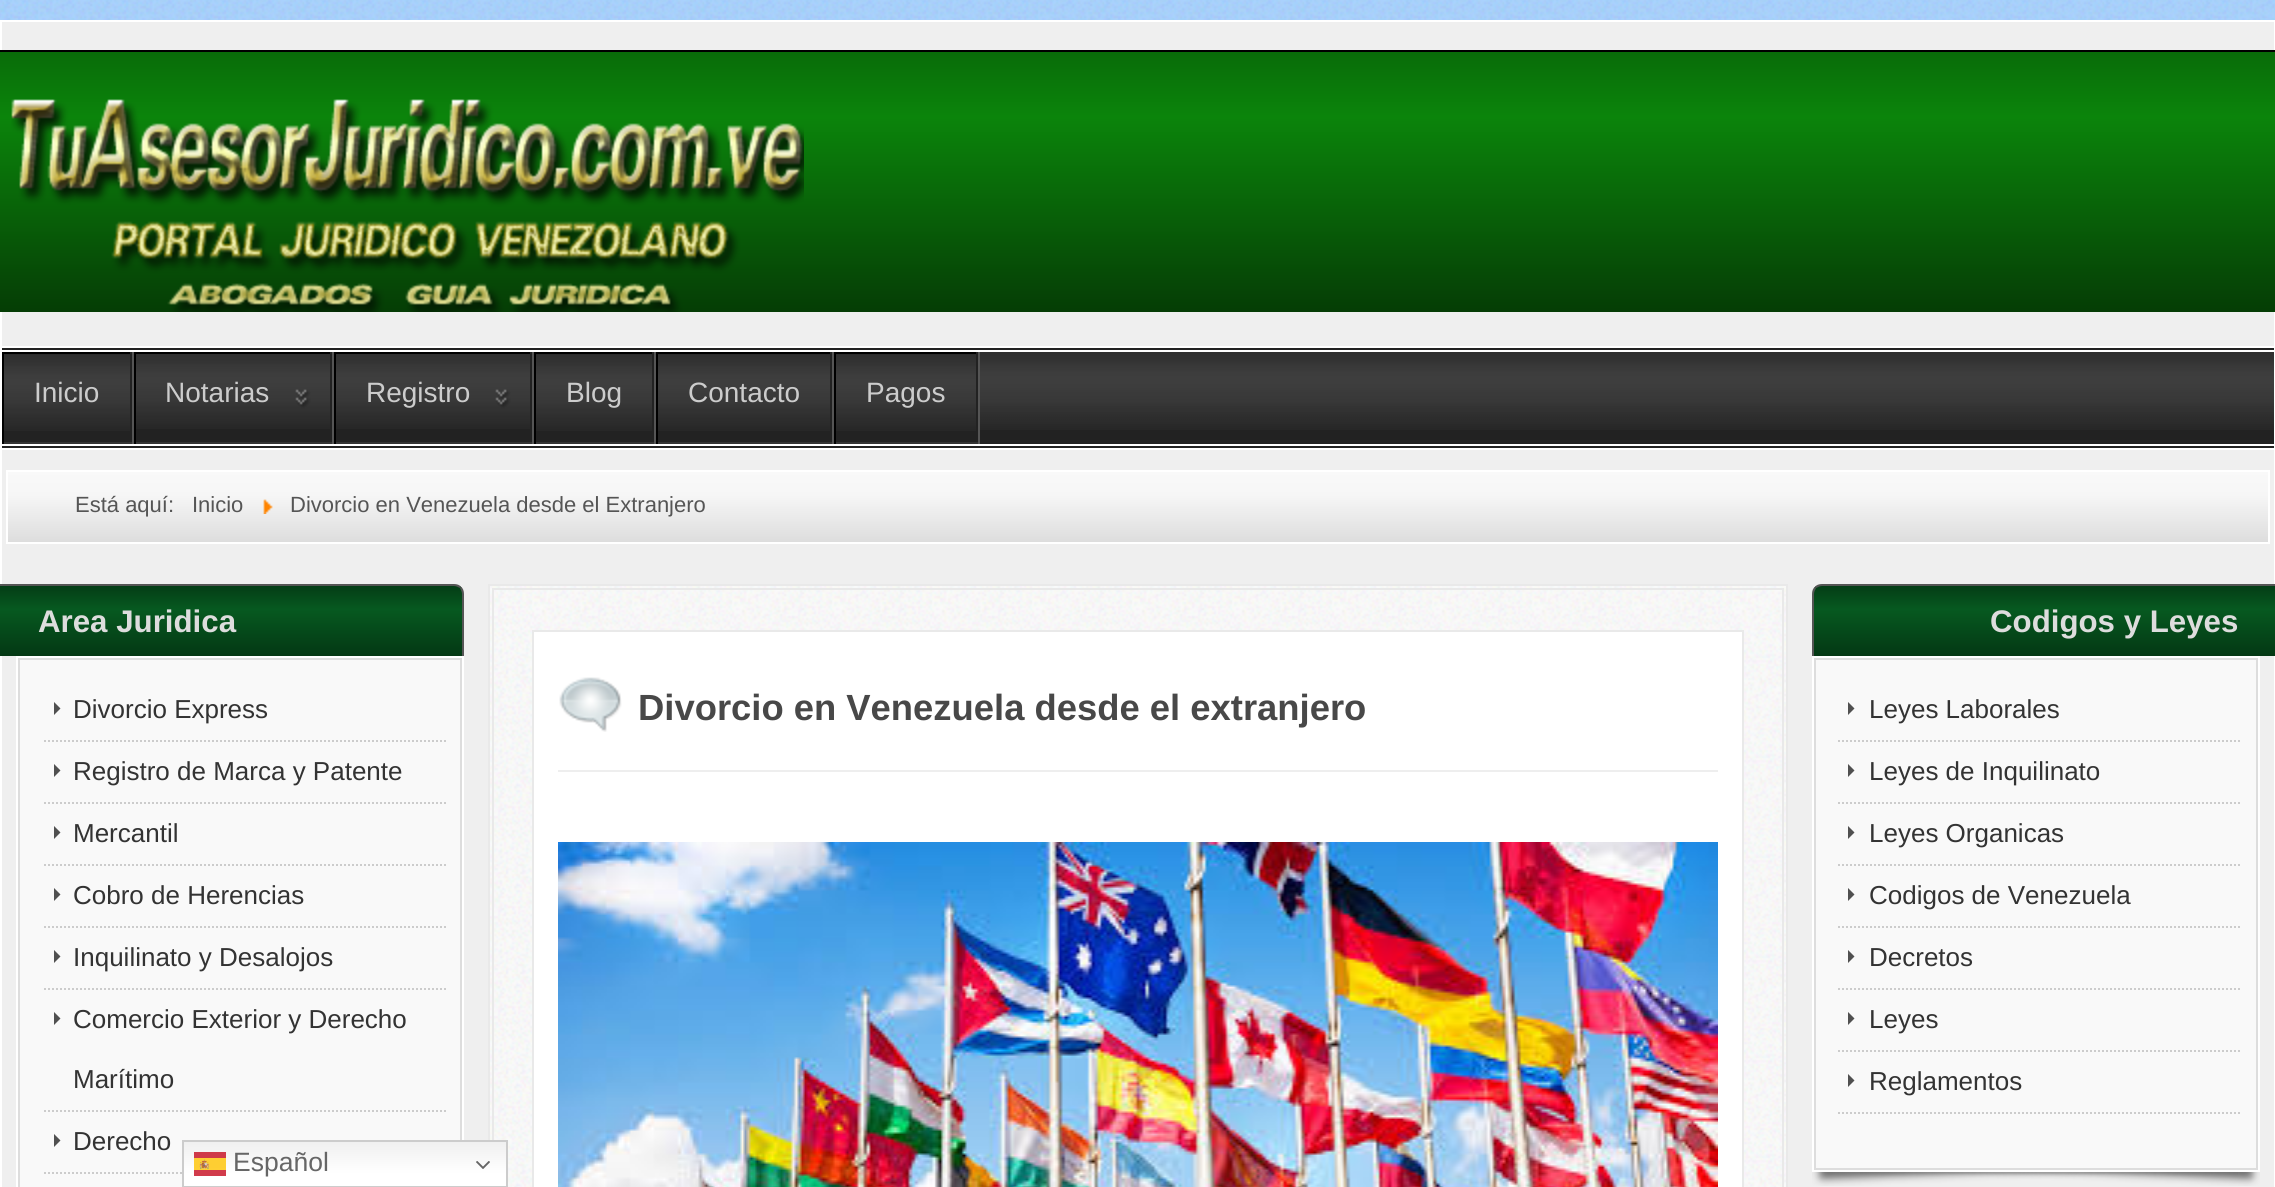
#include <cairo.h>
#include <math.h>
#include <stddef.h>


static void set_color(cairo_t *cr, unsigned color) {
    cairo_set_source_rgb(cr, (color >> 16) / 255.0, (color >> 8 & 255) / 255.0, (color & 255) / 255.0);
}

static void draw_text(cairo_t *cr, double x, double y, const char *s, const char *family, double size, int italic, int bold, unsigned color) {
    cairo_select_font_face(cr, family, italic ? CAIRO_FONT_SLANT_ITALIC : CAIRO_FONT_SLANT_NORMAL,
        bold ? CAIRO_FONT_WEIGHT_BOLD : CAIRO_FONT_WEIGHT_NORMAL);
    cairo_set_font_size(cr, size);
    set_color(cr, color);
    cairo_move_to(cr, x, y);
    cairo_show_text(cr, s);
}

static void fill_rect(cairo_t *cr, double x, double y, double w, double h, unsigned color) {
    set_color(cr, color);
    cairo_rectangle(cr, x, y, w, h);
    cairo_fill(cr);
}

static void draw_image(cairo_t *cr, const char *path, double x, double y, double w, double h) {
    cairo_surface_t *image = cairo_image_surface_create_from_png(path);
    cairo_save(cr);
    cairo_set_source_surface(cr, image, x, y);
    cairo_rectangle(cr, x, y, w, h);
    cairo_fill(cr);
    cairo_restore(cr);
    cairo_surface_destroy(image);
}

int main(void) {
    cairo_surface_t *surface = cairo_image_surface_create(CAIRO_FORMAT_RGB24, 2275, 1187);
    cairo_t *cr = cairo_create(surface);
    cairo_font_options_t *options = cairo_font_options_create();
    cairo_font_options_set_hint_metrics(options, CAIRO_HINT_METRICS_OFF);
    cairo_font_options_set_hint_style(options, CAIRO_HINT_STYLE_NONE);
    cairo_set_font_options(cr, options);
    cairo_set_miter_limit(cr, 4);
    cairo_pattern_t *gradient;
    set_color(cr, 0xA2CDFD);
    cairo_paint(cr);
    draw_image(cr, "assets/img1.png", 0, 0, 2275, 20);
    set_color(cr, 0xEFEFEF);
    cairo_rectangle(cr, 1, 21, 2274, 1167);
    cairo_fill_preserve(cr);
    set_color(cr, 0xFFFFFF);
    cairo_stroke(cr);
    gradient = cairo_pattern_create_linear(1138, 52, 1138, 312);
    cairo_pattern_add_color_stop_rgba(gradient, 0, 0.035, 0.424, 0.035, 1);
    cairo_pattern_add_color_stop_rgba(gradient, 0.25, 0.043, 0.518, 0.043, 1);
    cairo_pattern_add_color_stop_rgba(gradient, 1, 0.02, 0.239, 0.02, 1);
    cairo_set_source(cr, gradient);
    cairo_pattern_destroy(gradient);
    cairo_rectangle(cr, 0, 52, 2275, 260);
    cairo_fill(cr);
    set_color(cr, 0x000000);
    cairo_set_fill_rule(cr, CAIRO_FILL_RULE_EVEN_ODD);
    cairo_new_path(cr);
    cairo_move_to(cr, -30, 50);
    cairo_line_to(cr, 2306, 50);
    cairo_curve_to(cr, 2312, 50, 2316, 54, 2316, 60);
    cairo_line_to(cr, 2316, 312);
    cairo_line_to(cr, -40, 312);
    cairo_line_to(cr, -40, 60);
    cairo_curve_to(cr, -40, 54, -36, 50, -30, 50);
    cairo_close_path(cr);
    cairo_move_to(cr, -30, 52);
    cairo_line_to(cr, 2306, 52);
    cairo_curve_to(cr, 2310, 52, 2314, 56, 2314, 60);
    cairo_line_to(cr, 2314, 312);
    cairo_line_to(cr, -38, 312);
    cairo_line_to(cr, -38, 60);
    cairo_curve_to(cr, -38, 56, -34, 52, -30, 52);
    cairo_close_path(cr);
    cairo_fill(cr);
    draw_image(cr, "assets/img2.png", 11, 99, 793, 213);
    fill_rect(cr, 2, 348, 2272, 100, 0x222222);
    draw_image(cr, "assets/img3.png", 980, 352, 1294, 78);
    fill_rect(cr, 2, 346, 2272, 2, 0xFFFFFF);
    fill_rect(cr, 2, 350, 2272, 2, 0xFFFFFF);
    fill_rect(cr, 2, 444, 2272, 2, 0xFFFFFF);
    fill_rect(cr, 2, 448, 2272, 2, 0xFFFFFF);
    fill_rect(cr, 132, 352, 2, 92, 0x555555);
    draw_image(cr, "assets/img4.png", 4, 354, 126, 77);
    fill_rect(cr, 2, 352, 130, 2, 0x000000);
    fill_rect(cr, 130, 352, 2, 2, 0x222222);
    fill_rect(cr, 2, 442, 130, 2, 0x333333);
    fill_rect(cr, 2, 352, 2, 92, 0x000000);
    draw_text(cr, 34, 402, "Inicio", "Liberation Sans", 28, 0, 0, 0xCCCCCC);
    fill_rect(cr, 332, 352, 2, 92, 0x555555);
    draw_image(cr, "assets/img5.png", 136, 354, 194, 75);
    fill_rect(cr, 134, 352, 198, 2, 0x000000);
    fill_rect(cr, 330, 352, 2, 2, 0x222222);
    fill_rect(cr, 134, 442, 198, 2, 0x333333);
    fill_rect(cr, 134, 352, 2, 92, 0x000000);
    draw_text(cr, 165, 402, "Notarias", "Liberation Sans", 28, 0, 0, 0xCCCCCC);
    fill_rect(cr, 532, 352, 2, 92, 0x555555);
    draw_image(cr, "assets/img5.png", 336, 354, 194, 75);
    fill_rect(cr, 334, 352, 198, 2, 0x000000);
    fill_rect(cr, 530, 352, 2, 2, 0x222222);
    fill_rect(cr, 334, 442, 198, 2, 0x333333);
    fill_rect(cr, 334, 352, 2, 92, 0x000000);
    draw_text(cr, 366, 402, "Registro", "Liberation Sans", 28, 0, 0, 0xCCCCCC);
    fill_rect(cr, 654, 352, 2, 92, 0x555555);
    draw_image(cr, "assets/img6.png", 536, 354, 116, 77);
    fill_rect(cr, 534, 352, 120, 2, 0x000000);
    fill_rect(cr, 652, 352, 2, 2, 0x222222);
    fill_rect(cr, 534, 442, 120, 2, 0x333333);
    fill_rect(cr, 534, 352, 2, 92, 0x000000);
    draw_text(cr, 566, 402, "Blog", "Liberation Sans", 28, 0, 0, 0xCCCCCC);
    fill_rect(cr, 832, 352, 2, 92, 0x555555);
    draw_image(cr, "assets/img7.png", 658, 354, 172, 77);
    fill_rect(cr, 656, 352, 176, 2, 0x000000);
    fill_rect(cr, 830, 352, 2, 2, 0x222222);
    fill_rect(cr, 656, 442, 176, 2, 0x333333);
    fill_rect(cr, 656, 352, 2, 92, 0x000000);
    draw_text(cr, 688, 402, "Contacto", "Liberation Sans", 28, 0, 0, 0xCCCCCC);
    fill_rect(cr, 978, 352, 2, 92, 0x555555);
    draw_image(cr, "assets/img8.png", 836, 354, 140, 77);
    fill_rect(cr, 834, 352, 144, 2, 0x000000);
    fill_rect(cr, 976, 352, 2, 2, 0x222222);
    fill_rect(cr, 834, 442, 144, 2, 0x333333);
    fill_rect(cr, 834, 352, 2, 92, 0x000000);
    draw_text(cr, 866, 402, "Pagos", "Liberation Sans", 28, 0, 0, 0xCCCCCC);
    gradient = cairo_pattern_create_linear(1138, 472, 1138, 542);
    cairo_pattern_add_color_stop_rgba(gradient, 0, 0.976, 0.976, 0.976, 1);
    cairo_pattern_add_color_stop_rgba(gradient, 0.33, 0.965, 0.965, 0.965, 1);
    cairo_pattern_add_color_stop_rgba(gradient, 1, 0.867, 0.867, 0.867, 1);
    cairo_set_source(cr, gradient);
    cairo_pattern_destroy(gradient);
    cairo_rectangle(cr, 8, 472, 2260, 70);
    cairo_fill(cr);
    cairo_rectangle(cr, 7, 471, 2262, 72);
    set_color(cr, 0xFFFFFF);
    cairo_stroke(cr);
    draw_text(cr, 75, 512, "Está aquí:", "Liberation Sans", 22, 0, 0, 0x555555);
    draw_text(cr, 192, 512, "Inicio", "Liberation Sans", 22, 0, 0, 0x555555);
    draw_image(cr, "assets/img9.png", 263, 499, 10, 15);
    draw_text(cr, 290, 512, "Divorcio en Venezuela desde el Extranjero", "Liberation Sans", 22, 0, 0, 0x555555);
    cairo_rectangle(cr, 17, 657, 446, 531);
    set_color(cr, 0xFFFFFF);
    cairo_stroke(cr);
    set_color(cr, 0xF9F9F9);
    cairo_rectangle(cr, 19, 659, 442, 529);
    cairo_fill_preserve(cr);
    set_color(cr, 0xDDDDDD);
    cairo_stroke(cr);
    cairo_new_path(cr);
    cairo_move_to(cr, 44, 1173);
    cairo_line_to(cr, 448, 1173);
    set_color(cr, 0xCCCCCC);
    cairo_set_dash(cr, (double[]){2, 2}, 2, 0);
    cairo_stroke(cr);
    fill_rect(cr, 490, 586, 1296, 601, 0xF9F9F9);
    draw_image(cr, "assets/img12.png", 490, 586, 1296, 601);
    cairo_rectangle(cr, 489, 585, 1298, 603);
    set_color(cr, 0xE9E9E9);
    cairo_set_dash(cr, NULL, 0, 0);
    cairo_stroke(cr);
    cairo_rectangle(cr, 493, 589, 1290, 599);
    cairo_stroke(cr);
    gradient = cairo_pattern_create_linear(345, 1140, 345, 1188);
    cairo_pattern_add_color_stop_rgba(gradient, 0, 0.937, 0.937, 0.937, 1);
    cairo_pattern_add_color_stop_rgba(gradient, 0.7, 1, 1, 1, 1);
    cairo_set_source(cr, gradient);
    cairo_pattern_destroy(gradient);
    cairo_rectangle(cr, 184, 1142, 322, 44);
    cairo_fill(cr);
    cairo_rectangle(cr, 183, 1141, 324, 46);
    set_color(cr, 0xCCCCCC);
    cairo_stroke(cr);
    draw_image(cr, "assets/img10.png", 194, 1152, 32, 24);
    draw_text(cr, 233, 1171, "Español", "Liberation Sans", 26.5, 0, 0, 0x666666);
    draw_image(cr, "assets/img11.png", 476, 1161, 14, 8);
    cairo_save(cr);
    cairo_set_fill_rule(cr, CAIRO_FILL_RULE_WINDING);
    cairo_new_path(cr);
    cairo_move_to(cr, -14, 584);
    cairo_line_to(cr, 454, 584);
    cairo_curve_to(cr, 459.5, 584, 464, 588.5, 464, 594);
    cairo_line_to(cr, 464, 656);
    cairo_line_to(cr, -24, 656);
    cairo_line_to(cr, -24, 594);
    cairo_curve_to(cr, -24, 588.5, -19.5, 584, -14, 584);
    cairo_close_path(cr);
    cairo_clip(cr);
    gradient = cairo_pattern_create_linear(220, 586, 220, 656);
    cairo_pattern_add_color_stop_rgba(gradient, 0, 0.016, 0.239, 0.086, 1);
    cairo_pattern_add_color_stop_rgba(gradient, 0.33, 0.024, 0.349, 0.125, 1);
    cairo_pattern_add_color_stop_rgba(gradient, 1, 0.016, 0.22, 0.078, 1);
    cairo_set_source(cr, gradient);
    cairo_pattern_destroy(gradient);
    cairo_rectangle(cr, 0, 586, 462, 70);
    cairo_fill(cr);
    cairo_restore(cr);
    set_color(cr, 0x555555);
    cairo_set_fill_rule(cr, CAIRO_FILL_RULE_WINDING);
    cairo_new_path(cr);
    cairo_move_to(cr, -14, 584);
    cairo_curve_to(cr, -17, 584, -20, 585, -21, 587);
    cairo_line_to(cr, -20, 588);
    cairo_curve_to(cr, -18, 587, -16, 586, -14, 586);
    cairo_line_to(cr, 454, 586);
    cairo_curve_to(cr, 456, 586, 458, 587, 460, 588);
    cairo_line_to(cr, 461, 587);
    cairo_curve_to(cr, 460, 585, 457, 584, 454, 584);
    cairo_close_path(cr);
    cairo_fill(cr);
    cairo_new_path(cr);
    cairo_move_to(cr, 462, 656);
    cairo_line_to(cr, 464, 656);
    cairo_line_to(cr, 464, 594);
    cairo_curve_to(cr, 464, 591, 463, 588, 461, 587);
    cairo_line_to(cr, 460, 588);
    cairo_curve_to(cr, 461, 590, 462, 592, 462, 594);
    cairo_close_path(cr);
    cairo_fill(cr);
    draw_text(cr, 38, 632, "Area Juridica", "Liberation Sans", 31.25, 0, 1, 0xDDDDDD);
    set_color(cr, 0x505050);
    cairo_new_path(cr);
    cairo_move_to(cr, 54, 715);
    cairo_line_to(cr, 54, 702);
    cairo_line_to(cr, 60.5, 708.5);
    cairo_close_path(cr);
    cairo_fill(cr);
    cairo_new_path(cr);
    cairo_move_to(cr, 44, 741);
    cairo_line_to(cr, 448, 741);
    set_color(cr, 0xCCCCCC);
    cairo_set_dash(cr, (double[]){2, 2}, 2, 0);
    cairo_stroke(cr);
    draw_text(cr, 73, 718, "Divorcio Express", "Liberation Sans", 26, 0, 0, 0x333333);
    set_color(cr, 0x505050);
    cairo_new_path(cr);
    cairo_move_to(cr, 54, 777);
    cairo_line_to(cr, 54, 764);
    cairo_line_to(cr, 60.5, 770.5);
    cairo_close_path(cr);
    cairo_fill(cr);
    cairo_new_path(cr);
    cairo_move_to(cr, 44, 803);
    cairo_line_to(cr, 448, 803);
    set_color(cr, 0xCCCCCC);
    cairo_stroke(cr);
    draw_text(cr, 73, 780, "Registro de Marca y Patente", "Liberation Sans", 26, 0, 0, 0x333333);
    set_color(cr, 0x505050);
    cairo_new_path(cr);
    cairo_move_to(cr, 54, 839);
    cairo_line_to(cr, 54, 826);
    cairo_line_to(cr, 60.5, 832.5);
    cairo_close_path(cr);
    cairo_fill(cr);
    cairo_new_path(cr);
    cairo_move_to(cr, 44, 865);
    cairo_line_to(cr, 448, 865);
    set_color(cr, 0xCCCCCC);
    cairo_stroke(cr);
    draw_text(cr, 73, 842, "Mercantil", "Liberation Sans", 26, 0, 0, 0x333333);
    set_color(cr, 0x505050);
    cairo_new_path(cr);
    cairo_move_to(cr, 54, 901);
    cairo_line_to(cr, 54, 888);
    cairo_line_to(cr, 60.5, 894.5);
    cairo_close_path(cr);
    cairo_fill(cr);
    cairo_new_path(cr);
    cairo_move_to(cr, 44, 927);
    cairo_line_to(cr, 448, 927);
    set_color(cr, 0xCCCCCC);
    cairo_stroke(cr);
    draw_text(cr, 73, 904, "Cobro de Herencias", "Liberation Sans", 26, 0, 0, 0x333333);
    set_color(cr, 0x505050);
    cairo_new_path(cr);
    cairo_move_to(cr, 54, 963);
    cairo_line_to(cr, 54, 950);
    cairo_line_to(cr, 60.5, 956.5);
    cairo_close_path(cr);
    cairo_fill(cr);
    cairo_new_path(cr);
    cairo_move_to(cr, 44, 989);
    cairo_line_to(cr, 448, 989);
    set_color(cr, 0xCCCCCC);
    cairo_stroke(cr);
    draw_text(cr, 73, 966, "Inquilinato y Desalojos", "Liberation Sans", 26, 0, 0, 0x333333);
    set_color(cr, 0x505050);
    cairo_new_path(cr);
    cairo_move_to(cr, 54, 1025);
    cairo_line_to(cr, 54, 1012);
    cairo_line_to(cr, 60.5, 1018.5);
    cairo_close_path(cr);
    cairo_fill(cr);
    cairo_new_path(cr);
    cairo_move_to(cr, 44, 1111);
    cairo_line_to(cr, 448, 1111);
    set_color(cr, 0xCCCCCC);
    cairo_stroke(cr);
    draw_text(cr, 73, 1028, "Comercio Exterior y Derecho", "Liberation Sans", 26, 0, 0, 0x333333);
    draw_text(cr, 73, 1088, "Marítimo", "Liberation Sans", 26, 0, 0, 0x333333);
    set_color(cr, 0x505050);
    cairo_new_path(cr);
    cairo_move_to(cr, 54, 1147);
    cairo_line_to(cr, 54, 1134);
    cairo_line_to(cr, 60.5, 1140.5);
    cairo_close_path(cr);
    cairo_fill(cr);
    draw_text(cr, 73, 1150, "Derecho", "Liberation Sans", 26, 0, 0, 0x333333);
    set_color(cr, 0xFFFFFF);
    cairo_rectangle(cr, 533, 631, 1210, 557);
    cairo_fill_preserve(cr);
    set_color(cr, 0xE9E9E9);
    cairo_set_dash(cr, NULL, 0, 0);
    cairo_stroke(cr);
    fill_rect(cr, 558, 770, 1160, 2, 0xEEEEEE);
    draw_image(cr, "assets/img13.png", 559, 677, 63, 55);
    draw_text(cr, 638, 720, "Divorcio en Venezuela desde el extranjero", "Liberation Sans", 36.4, 0, 1, 0x484848);
    draw_image(cr, "assets/img14.png", 558, 842, 1160, 345);
    cairo_save(cr);
    cairo_new_path(cr);
    cairo_move_to(cr, 1822, 584);
    cairo_line_to(cr, 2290, 584);
    cairo_curve_to(cr, 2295.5, 584, 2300, 588.5, 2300, 594);
    cairo_line_to(cr, 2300, 656);
    cairo_line_to(cr, 1812, 656);
    cairo_line_to(cr, 1812, 594);
    cairo_curve_to(cr, 1812, 588.5, 1816.5, 584, 1822, 584);
    cairo_close_path(cr);
    cairo_clip(cr);
    gradient = cairo_pattern_create_linear(2056, 586, 2056, 656);
    cairo_pattern_add_color_stop_rgba(gradient, 0, 0.016, 0.239, 0.086, 1);
    cairo_pattern_add_color_stop_rgba(gradient, 0.33, 0.024, 0.349, 0.125, 1);
    cairo_pattern_add_color_stop_rgba(gradient, 1, 0.016, 0.22, 0.078, 1);
    cairo_set_source(cr, gradient);
    cairo_pattern_destroy(gradient);
    cairo_rectangle(cr, 1814, 586, 461, 70);
    cairo_fill(cr);
    cairo_restore(cr);
    set_color(cr, 0x555555);
    cairo_new_path(cr);
    cairo_move_to(cr, 1822, 584);
    cairo_curve_to(cr, 1819, 584, 1816, 585, 1815, 587);
    cairo_line_to(cr, 1816, 588);
    cairo_curve_to(cr, 1818, 587, 1820, 586, 1822, 586);
    cairo_line_to(cr, 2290, 586);
    cairo_curve_to(cr, 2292, 586, 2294, 587, 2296, 588);
    cairo_line_to(cr, 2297, 587);
    cairo_curve_to(cr, 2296, 585, 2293, 584, 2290, 584);
    cairo_close_path(cr);
    cairo_fill(cr);
    cairo_new_path(cr);
    cairo_move_to(cr, 1812, 656);
    cairo_line_to(cr, 1814, 656);
    cairo_line_to(cr, 1814, 594);
    cairo_curve_to(cr, 1814, 592, 1815, 590, 1816, 588);
    cairo_line_to(cr, 1815, 587);
    cairo_curve_to(cr, 1813, 588, 1812, 591, 1812, 594);
    cairo_close_path(cr);
    cairo_fill(cr);
    draw_text(cr, 1990, 632, "Codigos y Leyes", "Liberation Sans", 31.25, 0, 1, 0xDDDDDD);
    cairo_rectangle(cr, 1813, 657, 446, 514);
    set_color(cr, 0xFFFFFF);
    cairo_stroke(cr);
    set_color(cr, 0xF9F9F9);
    cairo_rectangle(cr, 1815, 659, 442, 510);
    cairo_fill_preserve(cr);
    set_color(cr, 0xDDDDDD);
    cairo_stroke(cr);
    set_color(cr, 0x505050);
    cairo_new_path(cr);
    cairo_move_to(cr, 1848, 715);
    cairo_line_to(cr, 1848, 702);
    cairo_line_to(cr, 1854.5, 708.5);
    cairo_close_path(cr);
    cairo_fill(cr);
    cairo_new_path(cr);
    cairo_move_to(cr, 1838, 741);
    cairo_line_to(cr, 2242, 741);
    set_color(cr, 0xCCCCCC);
    cairo_set_dash(cr, (double[]){2, 2}, 2, 0);
    cairo_stroke(cr);
    draw_text(cr, 1869, 718, "Leyes Laborales", "Liberation Sans", 26, 0, 0, 0x333333);
    set_color(cr, 0x505050);
    cairo_new_path(cr);
    cairo_move_to(cr, 1848, 777);
    cairo_line_to(cr, 1848, 764);
    cairo_line_to(cr, 1854.5, 770.5);
    cairo_close_path(cr);
    cairo_fill(cr);
    cairo_new_path(cr);
    cairo_move_to(cr, 1838, 803);
    cairo_line_to(cr, 2242, 803);
    set_color(cr, 0xCCCCCC);
    cairo_stroke(cr);
    draw_text(cr, 1869, 780, "Leyes de Inquilinato", "Liberation Sans", 26, 0, 0, 0x333333);
    set_color(cr, 0x505050);
    cairo_new_path(cr);
    cairo_move_to(cr, 1848, 839);
    cairo_line_to(cr, 1848, 826);
    cairo_line_to(cr, 1854.5, 832.5);
    cairo_close_path(cr);
    cairo_fill(cr);
    cairo_new_path(cr);
    cairo_move_to(cr, 1838, 865);
    cairo_line_to(cr, 2242, 865);
    set_color(cr, 0xCCCCCC);
    cairo_stroke(cr);
    draw_text(cr, 1869, 842, "Leyes Organicas", "Liberation Sans", 26, 0, 0, 0x333333);
    set_color(cr, 0x505050);
    cairo_new_path(cr);
    cairo_move_to(cr, 1848, 901);
    cairo_line_to(cr, 1848, 888);
    cairo_line_to(cr, 1854.5, 894.5);
    cairo_close_path(cr);
    cairo_fill(cr);
    cairo_new_path(cr);
    cairo_move_to(cr, 1838, 927);
    cairo_line_to(cr, 2242, 927);
    set_color(cr, 0xCCCCCC);
    cairo_stroke(cr);
    draw_text(cr, 1869, 904, "Codigos de Venezuela", "Liberation Sans", 26, 0, 0, 0x333333);
    set_color(cr, 0x505050);
    cairo_new_path(cr);
    cairo_move_to(cr, 1848, 963);
    cairo_line_to(cr, 1848, 950);
    cairo_line_to(cr, 1854.5, 956.5);
    cairo_close_path(cr);
    cairo_fill(cr);
    cairo_new_path(cr);
    cairo_move_to(cr, 1838, 989);
    cairo_line_to(cr, 2242, 989);
    set_color(cr, 0xCCCCCC);
    cairo_stroke(cr);
    draw_text(cr, 1869, 966, "Decretos", "Liberation Sans", 26, 0, 0, 0x333333);
    set_color(cr, 0x505050);
    cairo_new_path(cr);
    cairo_move_to(cr, 1848, 1025);
    cairo_line_to(cr, 1848, 1012);
    cairo_line_to(cr, 1854.5, 1018.5);
    cairo_close_path(cr);
    cairo_fill(cr);
    cairo_new_path(cr);
    cairo_move_to(cr, 1838, 1051);
    cairo_line_to(cr, 2242, 1051);
    set_color(cr, 0xCCCCCC);
    cairo_stroke(cr);
    draw_text(cr, 1869, 1028, "Leyes", "Liberation Sans", 26, 0, 0, 0x333333);
    set_color(cr, 0x505050);
    cairo_new_path(cr);
    cairo_move_to(cr, 1848, 1087);
    cairo_line_to(cr, 1848, 1074);
    cairo_line_to(cr, 1854.5, 1080.5);
    cairo_close_path(cr);
    cairo_fill(cr);
    cairo_new_path(cr);
    cairo_move_to(cr, 1838, 1113);
    cairo_line_to(cr, 2242, 1113);
    set_color(cr, 0xCCCCCC);
    cairo_stroke(cr);
    draw_text(cr, 1869, 1090, "Reglamentos", "Liberation Sans", 26, 0, 0, 0x333333);
    draw_image(cr, "assets/img15.png", 1812, 1172, 426, 14);
    draw_image(cr, "assets/img16.png", 1860, 1172, 400, 14);
    cairo_surface_write_to_png(surface, "output.png");
    cairo_font_options_destroy(options);
    cairo_destroy(cr);
    cairo_surface_destroy(surface);
    return 0;
}
